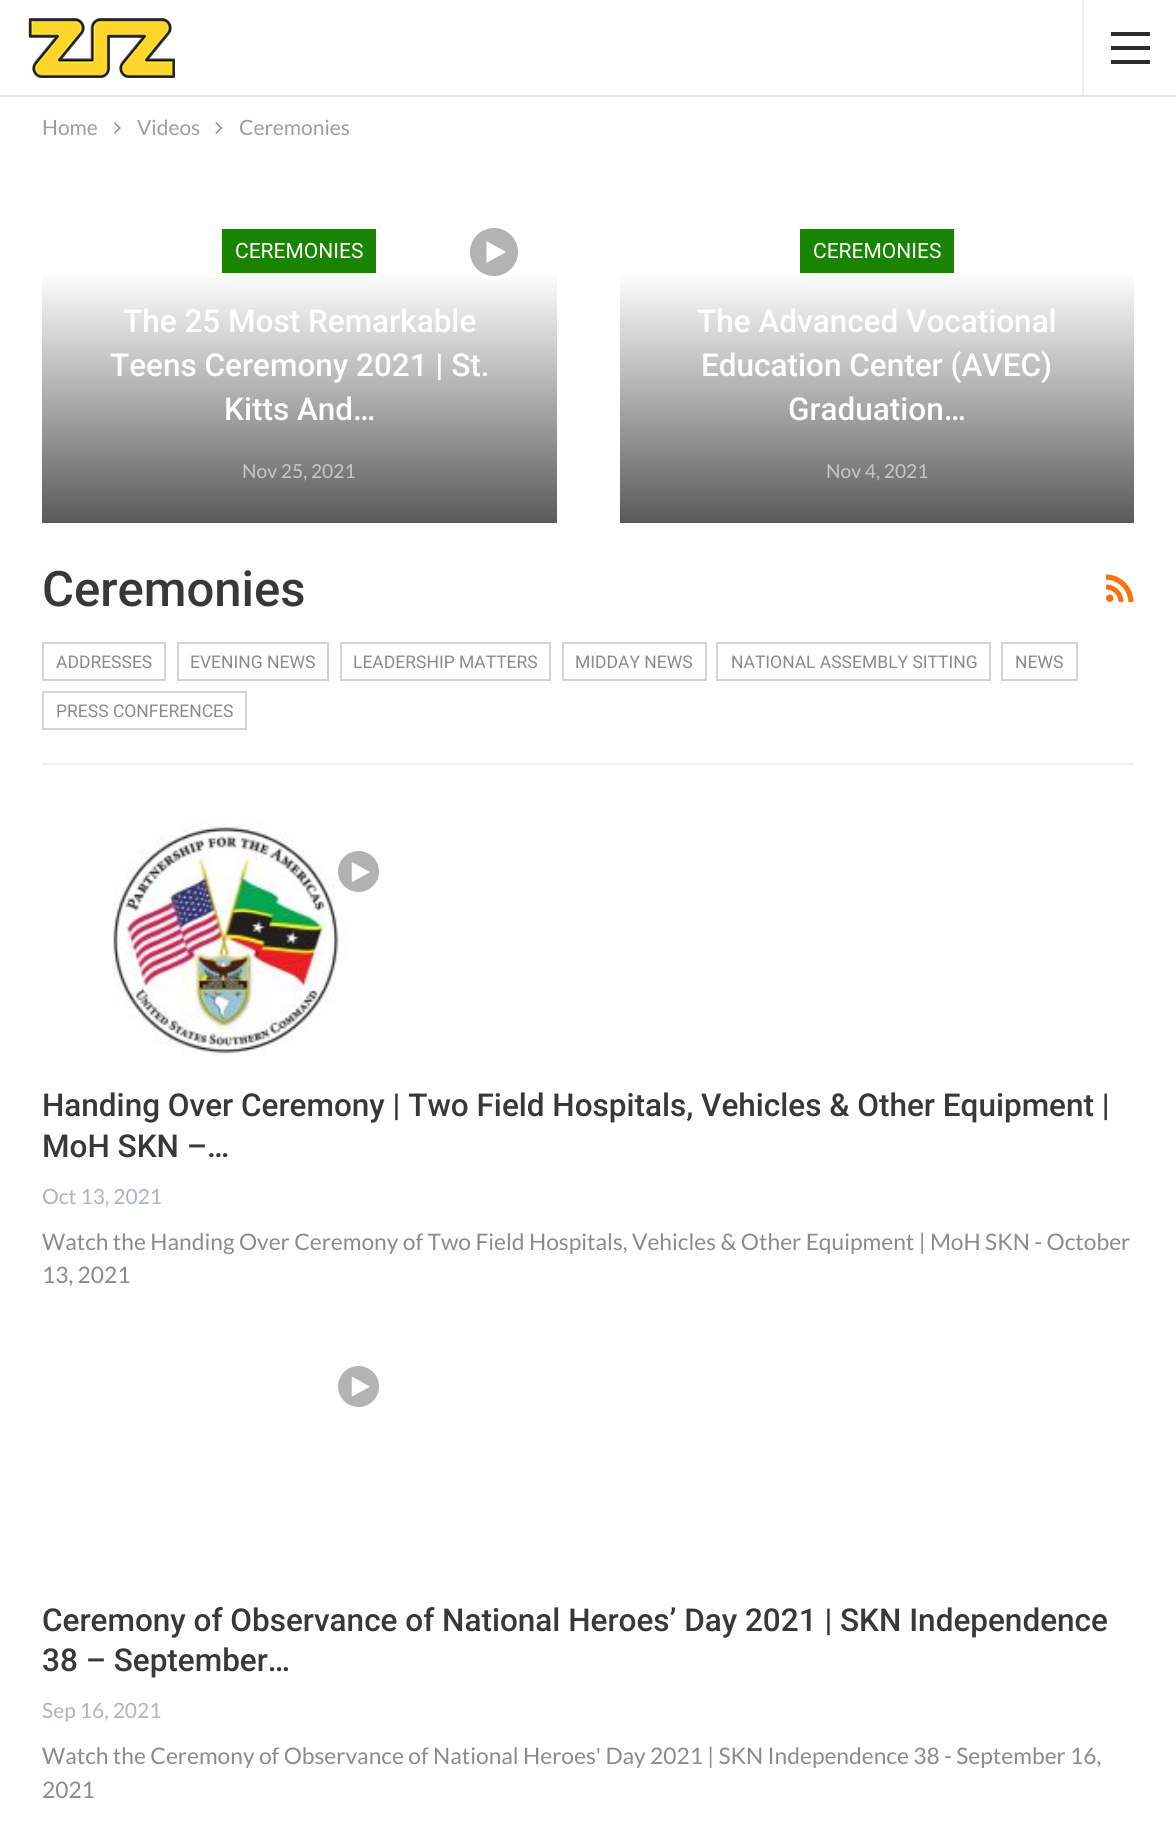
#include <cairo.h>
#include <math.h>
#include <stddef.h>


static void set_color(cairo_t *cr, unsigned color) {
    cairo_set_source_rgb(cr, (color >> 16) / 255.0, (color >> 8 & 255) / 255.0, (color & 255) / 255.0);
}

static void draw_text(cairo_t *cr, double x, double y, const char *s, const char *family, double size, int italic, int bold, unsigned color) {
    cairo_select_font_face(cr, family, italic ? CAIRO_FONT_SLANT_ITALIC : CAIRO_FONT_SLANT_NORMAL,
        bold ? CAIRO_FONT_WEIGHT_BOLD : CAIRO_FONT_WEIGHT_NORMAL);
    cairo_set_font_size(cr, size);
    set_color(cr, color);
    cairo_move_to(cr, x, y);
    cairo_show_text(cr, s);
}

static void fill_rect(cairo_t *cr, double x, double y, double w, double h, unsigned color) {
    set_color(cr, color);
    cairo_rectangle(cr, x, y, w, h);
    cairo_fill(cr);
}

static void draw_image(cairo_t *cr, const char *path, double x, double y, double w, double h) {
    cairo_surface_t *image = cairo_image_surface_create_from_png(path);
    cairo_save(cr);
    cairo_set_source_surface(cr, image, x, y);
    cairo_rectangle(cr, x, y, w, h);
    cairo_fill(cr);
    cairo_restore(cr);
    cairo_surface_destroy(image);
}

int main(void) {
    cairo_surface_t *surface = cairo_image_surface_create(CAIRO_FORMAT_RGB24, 1176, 1832);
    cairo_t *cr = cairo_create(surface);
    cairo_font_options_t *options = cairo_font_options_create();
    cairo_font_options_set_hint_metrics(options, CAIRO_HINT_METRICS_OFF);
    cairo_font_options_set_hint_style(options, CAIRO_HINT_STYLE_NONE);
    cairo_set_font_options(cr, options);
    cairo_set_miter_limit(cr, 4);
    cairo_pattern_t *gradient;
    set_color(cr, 0xFFFFFF);
    cairo_paint(cr);
    fill_rect(cr, 0, 95, 1176, 2, 0xE5E5E5);
    draw_image(cr, "assets/img1.png", 28, 18, 147, 60);
    fill_rect(cr, 1082, 0, 2, 95, 0xEDEDED);
    fill_rect(cr, 1111, 46, 39, 4, 0x2C2C2C);
    fill_rect(cr, 1111, 32, 39, 4, 0x2C2C2C);
    fill_rect(cr, 1111, 60, 39, 4, 0x2C2C2C);
    draw_text(cr, 42, 135, "Home", "Lato", 21, 0, 0, 0x9E9E9E);
    draw_image(cr, "assets/img2.png", 114, 122, 7, 12);
    draw_text(cr, 137, 135, "Videos", "Lato", 21, 0, 0, 0x9E9E9E);
    draw_image(cr, "assets/img3.png", 215, 122, 8, 12);
    draw_text(cr, 239, 135, "Ceremonies", "Lato", 21, 0, 0, 0x9E9E9E);
    fill_rect(cr, 222, 229, 154, 44, 0x188400);
    draw_text(cr, 235, 258, "CEREMONIES", "Roboto", 21, 0, 0, 0xFFFFFF);
    gradient = cairo_pattern_create_linear(299, 271, 299, 525);
    cairo_pattern_add_color_stop_rgba(gradient, 0, 1, 1, 1, 1);
    cairo_pattern_add_color_stop_rgba(gradient, 1, 0.349, 0.349, 0.349, 1);
    cairo_set_source(cr, gradient);
    cairo_pattern_destroy(gradient);
    cairo_rectangle(cr, 42, 275, 515, 248);
    cairo_fill(cr);
    draw_text(cr, 123, 332, "The 25 Most Remarkable", "Roboto Medium", 31.5, 0, 0, 0xFFFFFF);
    draw_text(cr, 110, 376, "Teens Ceremony 2021 | St.", "Roboto Medium", 31.5, 0, 0, 0xFFFFFF);
    draw_text(cr, 224, 420, "Kitts And…", "Roboto Medium", 31.5, 0, 0, 0xFFFFFF);
    draw_text(cr, 242, 478, "Nov 25, 2021", "Lato", 19.25, 0, 0, 0xC7C7C7);
    cairo_set_source_rgba(cr, 0, 0, 0, 0.3);
    cairo_new_path(cr);
    cairo_arc(cr, 494, 252, 26, 0, 2 * M_PI);
    cairo_fill_preserve(cr);
    set_color(cr, 0xFFFFFF);
    cairo_set_line_width(cr, 4);
    cairo_stroke(cr);
    draw_image(cr, "assets/img4.png", 486, 241, 20, 22);
    fill_rect(cr, 800, 229, 154, 44, 0x188400);
    draw_text(cr, 813, 258, "CEREMONIES", "Roboto", 21, 0, 0, 0xFFFFFF);
    gradient = cairo_pattern_create_linear(877, 271, 877, 525);
    cairo_pattern_add_color_stop_rgba(gradient, 0, 1, 1, 1, 1);
    cairo_pattern_add_color_stop_rgba(gradient, 1, 0.349, 0.349, 0.349, 1);
    cairo_set_source(cr, gradient);
    cairo_pattern_destroy(gradient);
    cairo_rectangle(cr, 620, 275, 514, 248);
    cairo_fill(cr);
    draw_text(cr, 697, 332, "The Advanced Vocational", "Roboto Medium", 31.5, 0, 0, 0xFFFFFF);
    draw_text(cr, 701, 376, "Education Center (AVEC)", "Roboto Medium", 31.5, 0, 0, 0xFFFFFF);
    draw_text(cr, 788, 420, "Graduation…", "Roboto Medium", 31.5, 0, 0, 0xFFFFFF);
    draw_text(cr, 826, 478, "Nov 4, 2021", "Lato", 19.25, 0, 0, 0xC7C7C7);
    fill_rect(cr, 42, 763, 1092, 2, 0xF0F0F0);
    draw_text(cr, 42, 606, "Ceremonies", "Roboto Medium", 49, 0, 0, 0x383838);
    draw_image(cr, "assets/img5.png", 1106, 574, 28, 28);
    cairo_rectangle(cr, 43, 643, 122, 37);
    set_color(cr, 0xD4D4D4);
    cairo_set_line_width(cr, 2);
    cairo_stroke(cr);
    draw_text(cr, 56, 668, "ADDRESSES", "Roboto", 17.5, 0, 0, 0x8B8B8B);
    cairo_rectangle(cr, 178, 643, 150, 37);
    set_color(cr, 0xD4D4D4);
    cairo_stroke(cr);
    draw_text(cr, 190, 668, "EVENING NEWS", "Roboto", 17.5, 0, 0, 0x8B8B8B);
    cairo_rectangle(cr, 341, 643, 209, 37);
    set_color(cr, 0xD4D4D4);
    cairo_stroke(cr);
    draw_text(cr, 353, 668, "LEADERSHIP MATTERS", "Roboto", 17.5, 0, 0, 0x8B8B8B);
    cairo_rectangle(cr, 563, 643, 143, 37);
    set_color(cr, 0xD4D4D4);
    cairo_stroke(cr);
    draw_text(cr, 575, 668, "MIDDAY NEWS", "Roboto", 17.5, 0, 0, 0x8B8B8B);
    cairo_rectangle(cr, 717, 643, 273, 37);
    set_color(cr, 0xD4D4D4);
    cairo_stroke(cr);
    draw_text(cr, 731, 668, "NATIONAL ASSEMBLY SITTING", "Roboto", 17.5, 0, 0, 0x8B8B8B);
    cairo_rectangle(cr, 1002, 643, 75, 37);
    set_color(cr, 0xD4D4D4);
    cairo_stroke(cr);
    draw_text(cr, 1015, 668, "NEWS", "Roboto", 17.5, 0, 0, 0x8B8B8B);
    cairo_rectangle(cr, 43, 692, 203, 37);
    set_color(cr, 0xD4D4D4);
    cairo_stroke(cr);
    draw_text(cr, 56, 717, "PRESS CONFERENCES", "Roboto", 17.5, 0, 0, 0x8B8B8B);
    draw_image(cr, "assets/img6.png", 113, 823, 233, 233);
    set_color(cr, 0xB2B2B2);
    cairo_arc(cr, 358.5, 871.5, 22.5, 0, 2 * M_PI);
    cairo_fill_preserve(cr);
    set_color(cr, 0xFFFFFF);
    cairo_set_line_width(cr, 4);
    cairo_stroke(cr);
    draw_image(cr, "assets/img7.png", 351, 862, 19, 20);
    draw_text(cr, 42, 1116, "Handing Over Ceremony | Two Field Hospitals, Vehicles & Other Equipment |", "Roboto Medium", 31.5, 0, 0, 0x383838);
    draw_text(cr, 42, 1157, "MoH SKN –…", "Roboto Medium", 31.5, 0, 0, 0x383838);
    draw_text(cr, 42, 1204, "Oct 13, 2021", "Lato", 21, 0, 0, 0xADB5BD);
    draw_text(cr, 42, 1250, "Watch the Handing Over Ceremony of Two Field Hospitals, Vehicles & Other Equipment | MoH SKN - October", "Lato", 22.75, 0, 0, 0x8B8B8B);
    draw_text(cr, 42, 1283, "13, 2021", "Lato", 22.75, 0, 0, 0x8B8B8B);
    set_color(cr, 0xB3B3B3);
    cairo_new_path(cr);
    cairo_arc(cr, 358.5, 1386.5, 22.5, 0, 2 * M_PI);
    cairo_fill_preserve(cr);
    set_color(cr, 0xFFFFFF);
    cairo_stroke(cr);
    draw_image(cr, "assets/img8.png", 351, 1376, 19, 21);
    draw_text(cr, 42, 1631, "Ceremony of Observance of National Heroes’ Day 2021 | SKN Independence", "Roboto Medium", 31.5, 0, 0, 0x383838);
    draw_text(cr, 42, 1671, "38 – September…", "Roboto Medium", 31.5, 0, 0, 0x383838);
    draw_text(cr, 42, 1718, "Sep 16, 2021", "Lato", 21, 0, 0, 0xADB5BD);
    draw_text(cr, 42, 1764, "Watch the Ceremony of Observance of National Heroes' Day 2021 | SKN Independence 38 - September 16,", "Lato", 22.75, 0, 0, 0x8B8B8B);
    draw_text(cr, 42, 1798, "2021", "Lato", 22.75, 0, 0, 0x8B8B8B);
    cairo_surface_write_to_png(surface, "output.png");
    cairo_font_options_destroy(options);
    cairo_destroy(cr);
    cairo_surface_destroy(surface);
    return 0;
}
